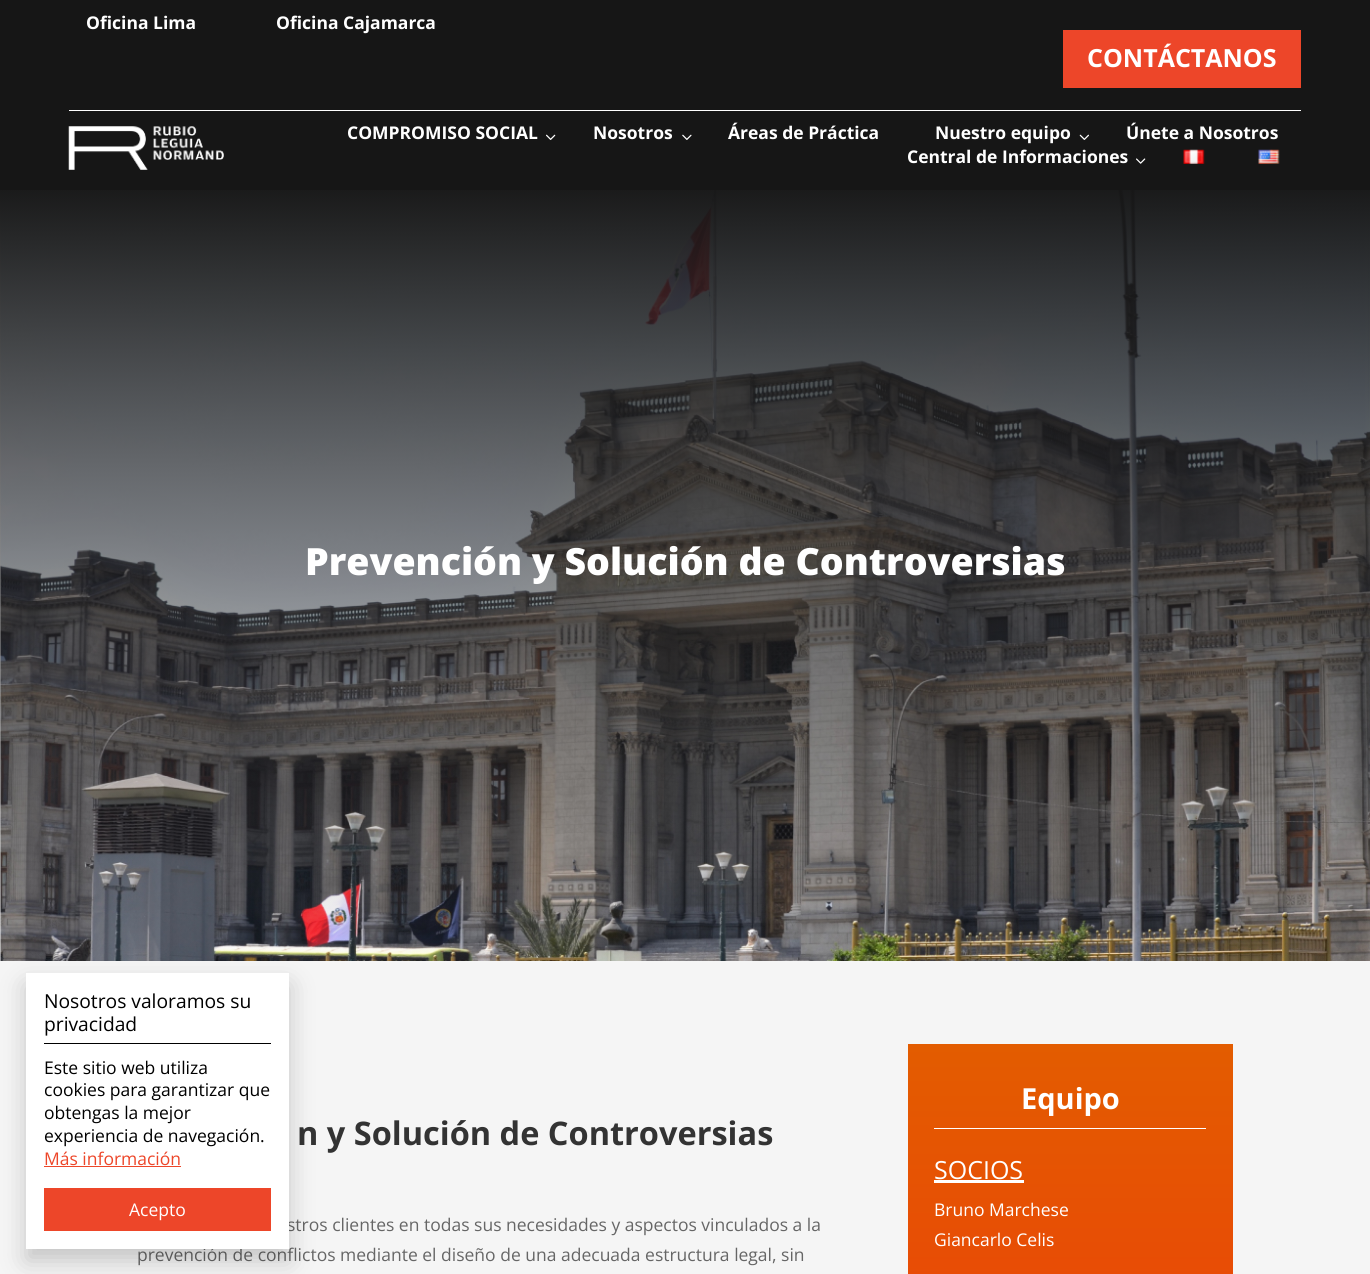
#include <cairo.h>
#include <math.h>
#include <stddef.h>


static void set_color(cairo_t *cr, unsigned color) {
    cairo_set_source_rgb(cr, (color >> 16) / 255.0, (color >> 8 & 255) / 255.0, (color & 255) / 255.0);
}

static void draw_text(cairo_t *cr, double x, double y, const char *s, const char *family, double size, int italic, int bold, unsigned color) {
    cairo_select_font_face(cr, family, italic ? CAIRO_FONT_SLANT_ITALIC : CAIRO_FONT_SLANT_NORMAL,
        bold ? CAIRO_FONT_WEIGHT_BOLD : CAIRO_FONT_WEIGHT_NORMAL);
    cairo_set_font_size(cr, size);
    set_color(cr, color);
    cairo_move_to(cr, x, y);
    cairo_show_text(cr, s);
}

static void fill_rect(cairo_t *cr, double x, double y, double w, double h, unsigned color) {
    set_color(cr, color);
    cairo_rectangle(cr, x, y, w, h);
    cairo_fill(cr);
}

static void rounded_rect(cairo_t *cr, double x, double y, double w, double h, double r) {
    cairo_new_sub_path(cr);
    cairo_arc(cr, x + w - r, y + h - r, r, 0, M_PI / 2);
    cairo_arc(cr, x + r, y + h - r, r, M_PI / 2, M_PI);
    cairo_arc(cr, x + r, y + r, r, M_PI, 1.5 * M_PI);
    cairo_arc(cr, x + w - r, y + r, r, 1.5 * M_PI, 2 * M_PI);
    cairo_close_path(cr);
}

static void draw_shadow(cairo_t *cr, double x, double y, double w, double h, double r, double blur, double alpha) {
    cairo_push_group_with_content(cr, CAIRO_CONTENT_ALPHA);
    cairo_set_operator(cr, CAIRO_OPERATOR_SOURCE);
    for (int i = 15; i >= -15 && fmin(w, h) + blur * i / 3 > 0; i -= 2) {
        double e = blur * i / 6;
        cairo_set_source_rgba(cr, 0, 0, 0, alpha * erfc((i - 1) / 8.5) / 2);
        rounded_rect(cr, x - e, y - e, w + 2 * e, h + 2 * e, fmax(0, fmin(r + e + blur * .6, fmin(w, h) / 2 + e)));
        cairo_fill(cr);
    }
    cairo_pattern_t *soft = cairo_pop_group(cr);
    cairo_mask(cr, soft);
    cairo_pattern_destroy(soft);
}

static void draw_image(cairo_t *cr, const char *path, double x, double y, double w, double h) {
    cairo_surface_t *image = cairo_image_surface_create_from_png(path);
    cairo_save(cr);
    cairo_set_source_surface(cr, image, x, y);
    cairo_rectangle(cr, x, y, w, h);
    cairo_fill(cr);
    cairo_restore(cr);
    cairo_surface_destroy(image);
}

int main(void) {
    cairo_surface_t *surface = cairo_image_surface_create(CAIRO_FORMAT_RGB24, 1370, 1274);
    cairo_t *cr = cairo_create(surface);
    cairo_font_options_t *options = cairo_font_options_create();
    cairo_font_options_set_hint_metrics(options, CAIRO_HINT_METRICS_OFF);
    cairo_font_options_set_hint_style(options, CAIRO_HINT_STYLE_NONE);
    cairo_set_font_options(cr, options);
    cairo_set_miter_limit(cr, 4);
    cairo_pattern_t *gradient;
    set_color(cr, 0xFFFFFF);
    cairo_paint(cr);
    fill_rect(cr, 0, 0, 1370, 190, 0x161616);
    fill_rect(cr, 69, 110, 1232, 1, 0xFFFFFF);
    draw_text(cr, 86, 29, "Oficina Lima", "Open Sans", 17.5, 0, 1, 0xFFFFFF);
    draw_text(cr, 276, 29, "Oficina Cajamarca", "Open Sans", 17.5, 0, 1, 0xFFFFFF);
    fill_rect(cr, 1063, 30, 238, 58, 0xED4629);
    draw_text(cr, 1087, 67, "CONTÁCTANOS", "Open Sans", 25, 0, 1, 0xFFFFFF);
    draw_image(cr, "assets/img1.png", 68, 126, 156, 44);
    draw_text(cr, 347, 139, "COMPROMISO SOCIAL", "Open Sans", 17.5, 0, 1, 0xFFFFFF);
    draw_image(cr, "assets/img2.png", 546, 134, 10, 6);
    draw_text(cr, 593, 139, "Nosotros", "Open Sans", 17.5, 0, 1, 0xFFFFFF);
    draw_image(cr, "assets/img3.png", 682, 134, 10, 6);
    draw_text(cr, 728, 139, "Áreas de Práctica", "Open Sans", 17.5, 0, 1, 0xFFFFFF);
    draw_text(cr, 935, 139, "Nuestro equipo", "Open Sans", 17.5, 0, 1, 0xFFFFFF);
    draw_image(cr, "assets/img4.png", 1079, 134, 10, 6);
    draw_text(cr, 1126, 139, "Únete a Nosotros", "Open Sans", 17.5, 0, 1, 0xFFFFFF);
    draw_text(cr, 907, 163, "Central de Informaciones", "Open Sans", 17.5, 0, 1, 0xFFFFFF);
    draw_image(cr, "assets/img5.png", 1136, 158, 10, 6);
    draw_image(cr, "assets/img6.png", 1183, 149, 22, 15);
    draw_image(cr, "assets/img7.png", 1258, 149, 22, 15);
    draw_image(cr, "assets/img8.png", 0, 190, 1370, 771);
    draw_text(cr, 305, 575, "Prevención y Solución de Controversias", "Open Sans ExtraBold", 37.5, 0, 0, 0xFFFFFF);
    fill_rect(cr, 0, 961, 1370, 313, 0xF5F5F5);
    draw_text(cr, 297, 1145, "n y Solución de Controversias", "Open Sans", 32.5, 0, 1, 0x333333);
    draw_text(cr, 287, 1231, "stros clientes en todas sus necesidades y aspectos vinculados a la", "Open Sans", 17.5, 0, 0, 0x666666);
    draw_text(cr, 137, 1261, "prevención de conflictos mediante el diseño de una adecuada estructura legal, sin", "Open Sans", 17.5, 0, 0, 0x666666);
    gradient = cairo_pattern_create_linear(1070, 1044, 1070, 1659);
    cairo_pattern_add_color_stop_rgba(gradient, 0, 0.89, 0.361, 0, 1);
    cairo_pattern_add_color_stop_rgba(gradient, 1, 0.941, 0.196, 0.059, 1);
    cairo_set_source(cr, gradient);
    cairo_pattern_destroy(gradient);
    cairo_rectangle(cr, 908, 1044, 325, 230);
    cairo_fill(cr);
    fill_rect(cr, 934, 1128, 272, 1, 0xFFFFFF);
    draw_text(cr, 1021, 1109, "Equipo", "Open Sans", 29, 0, 1, 0xFFFFFF);
    draw_text(cr, 934, 1179, "SOCIOS", "Open Sans", 25, 0, 0, 0xFFFFFF);
    fill_rect(cr, 934, 1180, 90, 3, 0xFFFFFF);
    draw_text(cr, 934, 1216, "Bruno Marchese", "Open Sans", 17.5, 0, 0, 0xFFFFFF);
    draw_text(cr, 934, 1246, "Giancarlo Celis", "Open Sans", 17.5, 0, 0, 0xFFFFFF);
    set_color(cr, 0x000000);
    draw_shadow(cr, 26, 985, 263, 276, 0, 12.5, 0.2);
    fill_rect(cr, 26, 973, 263, 276, 0xFFFFFF);
    fill_rect(cr, 44, 1043, 227, 1, 0x000000);
    draw_text(cr, 44, 1008, "Nosotros valoramos su", "Open Sans", 19.25, 0, 0, 0x000000);
    draw_text(cr, 44, 1031, "privacidad", "Open Sans", 19.25, 0, 0, 0x000000);
    draw_text(cr, 44, 1074, "Este sitio web utiliza", "Open Sans", 17.5, 0, 0, 0x000000);
    draw_text(cr, 44, 1096, "cookies para garantizar que", "Open Sans", 17.5, 0, 0, 0x000000);
    draw_text(cr, 44, 1119, "obtengas la mejor", "Open Sans", 17.5, 0, 0, 0x000000);
    draw_text(cr, 44, 1142, "experiencia de navegación.", "Open Sans", 17.5, 0, 0, 0x000000);
    draw_text(cr, 44, 1165, "Más información", "Open Sans", 17.5, 0, 0, 0xED4629);
    fill_rect(cr, 44, 1166, 137, 1, 0xED4629);
    fill_rect(cr, 44, 1188, 227, 43, 0xED4629);
    draw_text(cr, 129, 1216, "Acepto", "Open Sans", 17.5, 0, 0, 0xFFFFFF);
    cairo_surface_write_to_png(surface, "output.png");
    cairo_font_options_destroy(options);
    cairo_destroy(cr);
    cairo_surface_destroy(surface);
    return 0;
}
